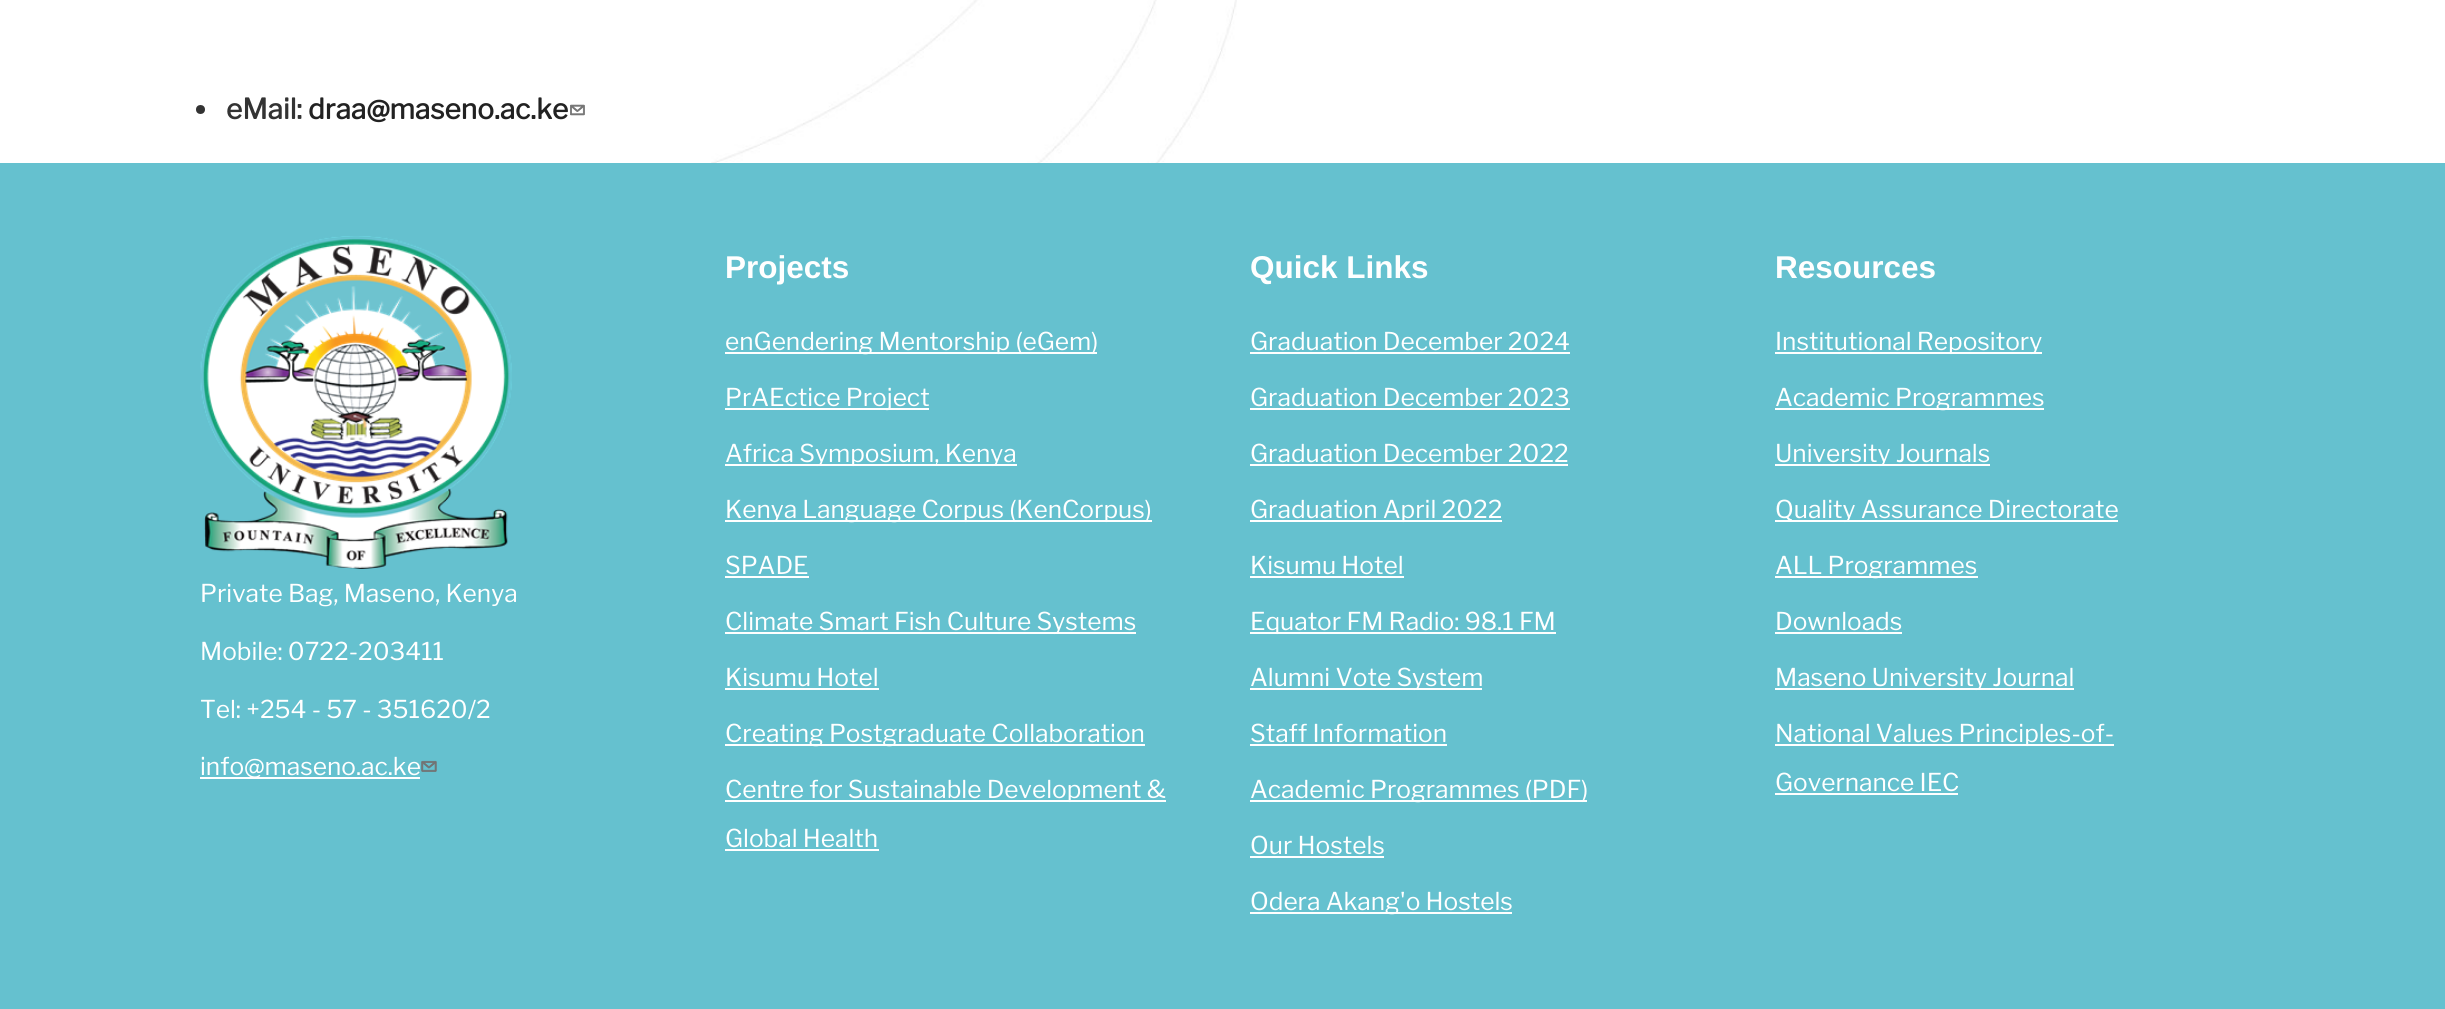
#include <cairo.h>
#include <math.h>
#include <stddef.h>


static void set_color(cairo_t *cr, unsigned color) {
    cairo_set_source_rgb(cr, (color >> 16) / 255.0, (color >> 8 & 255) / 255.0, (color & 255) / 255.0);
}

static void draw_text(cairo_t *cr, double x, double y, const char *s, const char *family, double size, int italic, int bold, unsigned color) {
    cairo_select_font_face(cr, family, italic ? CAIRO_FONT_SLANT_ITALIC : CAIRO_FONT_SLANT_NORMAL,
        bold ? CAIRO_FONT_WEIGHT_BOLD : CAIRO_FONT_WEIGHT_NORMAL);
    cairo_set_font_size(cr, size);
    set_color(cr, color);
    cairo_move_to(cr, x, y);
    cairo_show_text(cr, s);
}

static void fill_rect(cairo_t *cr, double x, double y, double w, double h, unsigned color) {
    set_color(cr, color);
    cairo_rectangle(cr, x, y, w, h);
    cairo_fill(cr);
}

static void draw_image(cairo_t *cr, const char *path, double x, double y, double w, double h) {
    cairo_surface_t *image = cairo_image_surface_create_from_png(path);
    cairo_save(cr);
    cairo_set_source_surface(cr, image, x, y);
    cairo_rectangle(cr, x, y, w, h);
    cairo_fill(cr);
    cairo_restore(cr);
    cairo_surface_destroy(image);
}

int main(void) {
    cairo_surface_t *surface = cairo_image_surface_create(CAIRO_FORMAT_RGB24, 2445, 1009);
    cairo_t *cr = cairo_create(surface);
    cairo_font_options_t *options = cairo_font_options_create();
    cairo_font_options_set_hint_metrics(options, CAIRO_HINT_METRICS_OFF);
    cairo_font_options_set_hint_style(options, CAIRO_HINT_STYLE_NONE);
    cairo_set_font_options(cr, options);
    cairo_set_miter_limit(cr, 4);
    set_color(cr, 0xFFFFFF);
    cairo_paint(cr);
    draw_image(cr, "assets/img1.png", 711, 0, 526, 163);
    set_color(cr, 0x333333);
    cairo_arc(cr, 200.5, 109.5, 4.5, 0, 2 * M_PI);
    cairo_fill(cr);
    draw_text(cr, 226, 119, "eMail:", "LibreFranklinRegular", 28, 0, 1, 0x333333);
    draw_text(cr, 308, 119, "draa@maseno.ac.ke", "LibreFranklinRegular", 28, 0, 1, 0x222222);
    draw_image(cr, "assets/img2.png", 570, 104, 15, 12);
    fill_rect(cr, 0, 163, 2445, 846, 0x65C1CF);
    draw_image(cr, "assets/img3.png", 200, 236, 312, 333);
    draw_text(cr, 200, 602, "Private Bag, Maseno, Kenya", "LibreFranklinRegular", 24.5, 0, 0, 0xFFFFFF);
    draw_text(cr, 200, 660, "Mobile: 0722-203411", "LibreFranklinRegular", 24.5, 0, 0, 0xFFFFFF);
    draw_text(cr, 200, 718, "Tel: +254 - 57 - 351620/2", "LibreFranklinRegular", 24.5, 0, 0, 0xFFFFFF);
    fill_rect(cr, 200, 777, 220, 2, 0xFFFFFF);
    draw_text(cr, 200, 775, "info@maseno.ac.ke", "LibreFranklinRegular", 24.5, 0, 0, 0xFFFFFF);
    draw_image(cr, "assets/img4.png", 421, 760, 16, 12);
    draw_text(cr, 725, 278, "Projects", "Liberation Sans", 31.5, 0, 1, 0xFFFFFF);
    fill_rect(cr, 725, 352, 372, 2, 0xFFFFFF);
    draw_text(cr, 725, 350, "enGendering Mentorship (eGem)", "LibreFranklinRegular", 24.5, 0, 0, 0xFFFFFF);
    fill_rect(cr, 725, 408, 204, 2, 0xFFFFFF);
    draw_text(cr, 725, 406, "PrAEctice Project", "LibreFranklinRegular", 24.5, 0, 0, 0xFFFFFF);
    fill_rect(cr, 725, 464, 292, 2, 0xFFFFFF);
    draw_text(cr, 725, 462, "Africa Symposium, Kenya", "LibreFranklinRegular", 24.5, 0, 0, 0xFFFFFF);
    fill_rect(cr, 725, 520, 427, 2, 0xFFFFFF);
    draw_text(cr, 725, 518, "Kenya Language Corpus (KenCorpus)", "LibreFranklinRegular", 24.5, 0, 0, 0xFFFFFF);
    draw_text(cr, 725, 574, "SPADE", "LibreFranklinRegular", 24.5, 0, 0, 0xFFFFFF);
    fill_rect(cr, 725, 576, 84, 2, 0xFFFFFF);
    fill_rect(cr, 725, 632, 411, 2, 0xFFFFFF);
    draw_text(cr, 725, 630, "Climate Smart Fish Culture Systems", "LibreFranklinRegular", 24.5, 0, 0, 0xFFFFFF);
    draw_text(cr, 725, 686, "Kisumu Hotel", "LibreFranklinRegular", 24.5, 0, 0, 0xFFFFFF);
    fill_rect(cr, 725, 688, 154, 2, 0xFFFFFF);
    fill_rect(cr, 725, 744, 420, 2, 0xFFFFFF);
    draw_text(cr, 725, 742, "Creating Postgraduate Collaboration", "LibreFranklinRegular", 24.5, 0, 0, 0xFFFFFF);
    fill_rect(cr, 725, 800, 441, 2, 0xFFFFFF);
    draw_text(cr, 725, 798, "Centre for Sustainable Development &", "LibreFranklinRegular", 24.5, 0, 0, 0xFFFFFF);
    draw_text(cr, 725, 847, "Global Health", "LibreFranklinRegular", 24.5, 0, 0, 0xFFFFFF);
    fill_rect(cr, 725, 849, 154, 2, 0xFFFFFF);
    draw_text(cr, 1250, 278, "Quick Links", "Liberation Sans", 31.5, 0, 1, 0xFFFFFF);
    draw_text(cr, 1250, 350, "Graduation December 2024", "LibreFranklinRegular", 24.5, 0, 0, 0xFFFFFF);
    fill_rect(cr, 1250, 352, 320, 2, 0xFFFFFF);
    draw_text(cr, 1250, 406, "Graduation December 2023", "LibreFranklinRegular", 24.5, 0, 0, 0xFFFFFF);
    fill_rect(cr, 1250, 408, 320, 2, 0xFFFFFF);
    draw_text(cr, 1250, 462, "Graduation December 2022", "LibreFranklinRegular", 24.5, 0, 0, 0xFFFFFF);
    fill_rect(cr, 1250, 464, 318, 2, 0xFFFFFF);
    fill_rect(cr, 1250, 520, 252, 2, 0xFFFFFF);
    draw_text(cr, 1250, 518, "Graduation April 2022", "LibreFranklinRegular", 24.5, 0, 0, 0xFFFFFF);
    draw_text(cr, 1250, 574, "Kisumu Hotel", "LibreFranklinRegular", 24.5, 0, 0, 0xFFFFFF);
    fill_rect(cr, 1250, 576, 154, 2, 0xFFFFFF);
    fill_rect(cr, 1250, 632, 306, 2, 0xFFFFFF);
    draw_text(cr, 1250, 630, "Equator FM Radio: 98.1 FM", "LibreFranklinRegular", 24.5, 0, 0, 0xFFFFFF);
    fill_rect(cr, 1250, 688, 232, 2, 0xFFFFFF);
    draw_text(cr, 1250, 686, "Alumni Vote System", "LibreFranklinRegular", 24.5, 0, 0, 0xFFFFFF);
    draw_text(cr, 1250, 742, "Staff Information", "LibreFranklinRegular", 24.5, 0, 0, 0xFFFFFF);
    fill_rect(cr, 1250, 744, 197, 2, 0xFFFFFF);
    fill_rect(cr, 1250, 800, 337, 2, 0xFFFFFF);
    draw_text(cr, 1250, 798, "Academic Programmes (PDF)", "LibreFranklinRegular", 24.5, 0, 0, 0xFFFFFF);
    draw_text(cr, 1250, 854, "Our Hostels", "LibreFranklinRegular", 24.5, 0, 0, 0xFFFFFF);
    fill_rect(cr, 1250, 856, 134, 2, 0xFFFFFF);
    fill_rect(cr, 1250, 912, 262, 2, 0xFFFFFF);
    draw_text(cr, 1250, 910, "Odera Akang'o Hostels", "LibreFranklinRegular", 24.5, 0, 0, 0xFFFFFF);
    draw_text(cr, 1775, 278, "Resources", "Liberation Sans", 31.5, 0, 1, 0xFFFFFF);
    fill_rect(cr, 1775, 352, 267, 2, 0xFFFFFF);
    draw_text(cr, 1775, 350, "Institutional Repository", "LibreFranklinRegular", 24.5, 0, 0, 0xFFFFFF);
    fill_rect(cr, 1775, 408, 269, 2, 0xFFFFFF);
    draw_text(cr, 1775, 406, "Academic Programmes", "LibreFranklinRegular", 24.5, 0, 0, 0xFFFFFF);
    fill_rect(cr, 1775, 464, 215, 2, 0xFFFFFF);
    draw_text(cr, 1775, 462, "University Journals", "LibreFranklinRegular", 24.5, 0, 0, 0xFFFFFF);
    fill_rect(cr, 1775, 520, 343, 2, 0xFFFFFF);
    draw_text(cr, 1775, 518, "Quality Assurance Directorate", "LibreFranklinRegular", 24.5, 0, 0, 0xFFFFFF);
    fill_rect(cr, 1775, 576, 203, 2, 0xFFFFFF);
    draw_text(cr, 1775, 574, "ALL Programmes", "LibreFranklinRegular", 24.5, 0, 0, 0xFFFFFF);
    draw_text(cr, 1775, 630, "Downloads", "LibreFranklinRegular", 24.5, 0, 0, 0xFFFFFF);
    fill_rect(cr, 1775, 632, 127, 2, 0xFFFFFF);
    fill_rect(cr, 1775, 688, 299, 2, 0xFFFFFF);
    draw_text(cr, 1775, 686, "Maseno University Journal", "LibreFranklinRegular", 24.5, 0, 0, 0xFFFFFF);
    fill_rect(cr, 1775, 744, 339, 2, 0xFFFFFF);
    draw_text(cr, 1775, 742, "National Values Principles-of-", "LibreFranklinRegular", 24.5, 0, 0, 0xFFFFFF);
    draw_text(cr, 1775, 791, "Governance IEC", "LibreFranklinRegular", 24.5, 0, 0, 0xFFFFFF);
    fill_rect(cr, 1775, 793, 183, 2, 0xFFFFFF);
    cairo_surface_write_to_png(surface, "output.png");
    cairo_font_options_destroy(options);
    cairo_destroy(cr);
    cairo_surface_destroy(surface);
    return 0;
}
